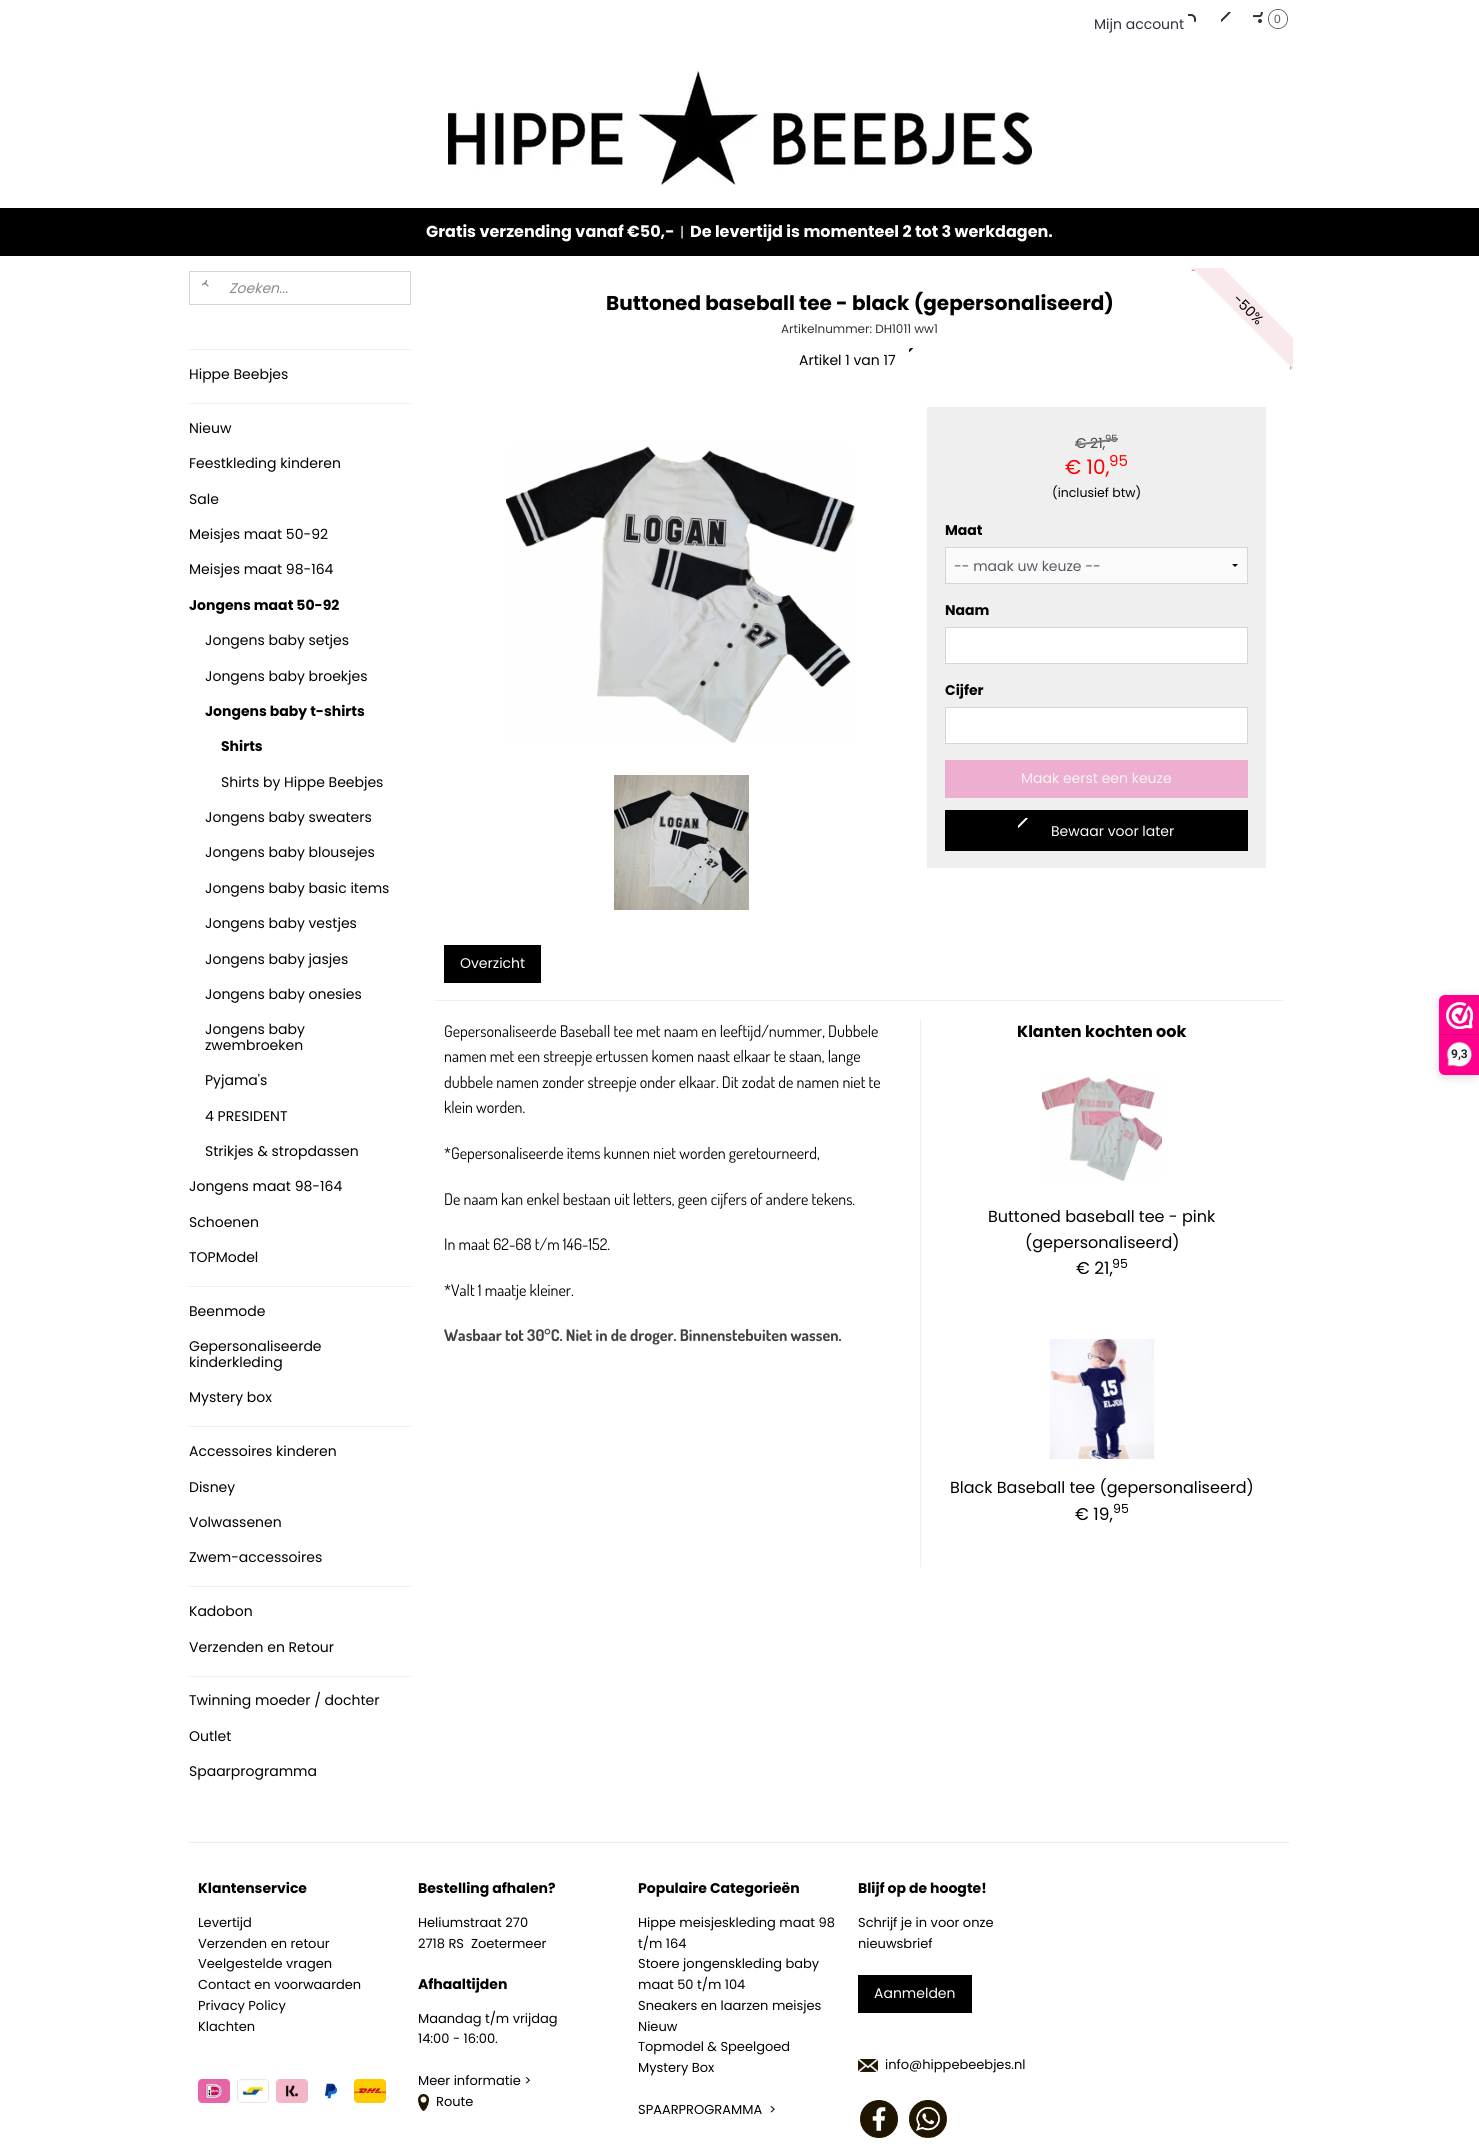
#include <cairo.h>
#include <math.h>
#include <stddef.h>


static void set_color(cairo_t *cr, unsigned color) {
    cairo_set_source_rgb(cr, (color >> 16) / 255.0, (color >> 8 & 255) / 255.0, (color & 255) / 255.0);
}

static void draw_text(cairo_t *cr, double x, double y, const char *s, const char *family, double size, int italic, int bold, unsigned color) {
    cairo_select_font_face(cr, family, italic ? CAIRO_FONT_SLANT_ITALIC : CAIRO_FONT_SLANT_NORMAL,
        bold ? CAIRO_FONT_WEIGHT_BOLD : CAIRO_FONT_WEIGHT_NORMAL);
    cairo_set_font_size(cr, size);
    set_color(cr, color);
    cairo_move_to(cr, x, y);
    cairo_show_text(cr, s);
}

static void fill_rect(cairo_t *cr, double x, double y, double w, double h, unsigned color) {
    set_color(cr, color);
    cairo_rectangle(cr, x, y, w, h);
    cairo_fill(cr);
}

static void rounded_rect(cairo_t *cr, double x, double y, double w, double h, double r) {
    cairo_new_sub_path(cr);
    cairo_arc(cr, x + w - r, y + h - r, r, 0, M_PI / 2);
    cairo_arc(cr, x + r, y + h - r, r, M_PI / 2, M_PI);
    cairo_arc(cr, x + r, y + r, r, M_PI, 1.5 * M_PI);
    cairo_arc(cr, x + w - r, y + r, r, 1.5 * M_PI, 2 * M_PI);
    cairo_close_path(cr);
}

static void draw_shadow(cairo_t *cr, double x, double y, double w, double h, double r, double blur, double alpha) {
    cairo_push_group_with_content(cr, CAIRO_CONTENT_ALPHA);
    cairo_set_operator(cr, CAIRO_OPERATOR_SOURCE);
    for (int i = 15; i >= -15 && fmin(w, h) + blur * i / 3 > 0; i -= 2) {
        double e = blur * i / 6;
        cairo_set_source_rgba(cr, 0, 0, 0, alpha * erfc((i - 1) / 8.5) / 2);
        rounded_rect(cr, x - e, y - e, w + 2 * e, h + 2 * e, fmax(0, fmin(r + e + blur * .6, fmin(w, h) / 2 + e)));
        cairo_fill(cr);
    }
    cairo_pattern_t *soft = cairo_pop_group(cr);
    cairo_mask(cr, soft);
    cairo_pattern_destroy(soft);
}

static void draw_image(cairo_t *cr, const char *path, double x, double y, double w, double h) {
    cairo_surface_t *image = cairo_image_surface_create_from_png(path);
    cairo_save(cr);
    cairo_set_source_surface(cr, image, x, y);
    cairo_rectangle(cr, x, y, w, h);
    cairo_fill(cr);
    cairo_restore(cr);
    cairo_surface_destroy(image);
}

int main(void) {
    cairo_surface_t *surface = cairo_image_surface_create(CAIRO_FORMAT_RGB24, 1479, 2150);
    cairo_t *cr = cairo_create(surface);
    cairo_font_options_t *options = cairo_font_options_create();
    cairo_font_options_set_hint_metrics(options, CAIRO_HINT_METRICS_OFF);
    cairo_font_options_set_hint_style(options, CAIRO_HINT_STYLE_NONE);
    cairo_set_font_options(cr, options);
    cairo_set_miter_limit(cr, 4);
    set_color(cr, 0xFFFFFF);
    cairo_paint(cr);
    draw_image(cr, "assets/img1.png", 188, 1842, 1102, 1);
    draw_image(cr, "assets/img2.png", 1221, 12, 10, 10);
    draw_text(cr, 1094, 29, "Mijn account", "Poppins", 14, 0, 0, 0x2D3139);
    draw_image(cr, "assets/img3.png", 1188, 14, 8, 8);
    draw_image(cr, "assets/img4.png", 1253, 12, 10, 11);
    cairo_arc(cr, 1278, 19, 9.5, 0, 2 * M_PI);
    set_color(cr, 0x575B62);
    cairo_set_line_width(cr, 1);
    cairo_stroke(cr);
    set_color(cr, 0xFFFFFF);
    cairo_arc(cr, 1278, 19, 9, 0, 2 * M_PI);
    cairo_fill(cr);
    draw_text(cr, 1274, 23, "0", "Liberation Sans", 12, 0, 0, 0x575B62);
    draw_image(cr, "assets/img5.png", 448, 68, 584, 120);
    fill_rect(cr, 0, 208, 1479, 48, 0x000000);
    draw_text(cr, 426, 237, "Gratis verzending vanaf €50,-", "Poppins", 16, 0, 1, 0xFFFFFF);
    draw_text(cr, 680, 237, "|", "Poppins", 14, 0, 0, 0xFFFFFF);
    draw_text(cr, 690, 237, "De levertijd is momenteel 2 tot 3 werkdagen.", "Poppins", 16, 0, 1, 0xFFFFFF);
    cairo_rectangle(cr, 189.5, 271.5, 221, 33);
    set_color(cr, 0xD3D5D9);
    cairo_stroke(cr);
    draw_image(cr, "assets/img6.png", 202, 280, 7, 7);
    draw_text(cr, 229, 293, "Zoeken...", "Poppins", 14, 1, 0, 0x898C91);
    fill_rect(cr, 189, 349, 222, 1, 0xEFEFEF);
    draw_text(cr, 189, 379, "Hippe Beebjes", "Poppins", 14, 0, 0, 0x000000);
    fill_rect(cr, 189, 403, 222, 1, 0xEFEFEF);
    draw_text(cr, 189, 433, "Nieuw", "Poppins", 14, 0, 0, 0x000000);
    draw_text(cr, 189, 468, "Feestkleding kinderen", "Poppins", 14, 0, 0, 0x000000);
    draw_text(cr, 189, 504, "Sale", "Poppins", 14, 0, 0, 0x000000);
    draw_text(cr, 189, 539, "Meisjes maat 50-92", "Poppins", 14, 0, 0, 0x000000);
    draw_text(cr, 189, 574, "Meisjes maat 98-164", "Poppins", 14, 0, 0, 0x000000);
    draw_text(cr, 189, 610, "Jongens maat 50-92", "Poppins", 14, 0, 1, 0x000000);
    draw_text(cr, 205, 645, "Jongens baby setjes", "Poppins", 14, 0, 0, 0x000000);
    draw_text(cr, 205, 681, "Jongens baby broekjes", "Poppins", 14, 0, 0, 0x000000);
    draw_text(cr, 205, 716, "Jongens baby t-shirts", "Poppins", 14, 0, 1, 0x000000);
    draw_text(cr, 221, 751, "Shirts", "Poppins", 14, 0, 1, 0x000000);
    draw_text(cr, 221, 787, "Shirts by Hippe Beebjes", "Poppins", 14, 0, 0, 0x000000);
    draw_text(cr, 205, 822, "Jongens baby sweaters", "Poppins", 14, 0, 0, 0x000000);
    draw_text(cr, 205, 857, "Jongens baby blousejes", "Poppins", 14, 0, 0, 0x000000);
    draw_text(cr, 205, 893, "Jongens baby basic items", "Poppins", 14, 0, 0, 0x000000);
    draw_text(cr, 205, 928, "Jongens baby vestjes", "Poppins", 14, 0, 0, 0x000000);
    draw_text(cr, 205, 964, "Jongens baby jasjes", "Poppins", 14, 0, 0, 0x000000);
    draw_text(cr, 205, 999, "Jongens baby onesies", "Poppins", 14, 0, 0, 0x000000);
    draw_text(cr, 205, 1034, "Jongens baby", "Poppins", 14, 0, 0, 0x000000);
    draw_text(cr, 205, 1050, "zwembroeken", "Poppins", 14, 0, 0, 0x000000);
    draw_text(cr, 205, 1085, "Pyjama's", "Poppins", 14, 0, 0, 0x000000);
    draw_text(cr, 205, 1121, "4 PRESIDENT", "Poppins", 14, 0, 0, 0x000000);
    draw_text(cr, 205, 1156, "Strikjes & stropdassen", "Poppins", 14, 0, 0, 0x000000);
    draw_text(cr, 189, 1191, "Jongens maat 98-164", "Poppins", 14, 0, 0, 0x000000);
    draw_text(cr, 189, 1227, "Schoenen", "Poppins", 14, 0, 0, 0x000000);
    draw_text(cr, 189, 1262, "TOPModel", "Poppins", 14, 0, 0, 0x000000);
    fill_rect(cr, 189, 1286, 222, 1, 0xEFEFEF);
    draw_text(cr, 189, 1316, "Beenmode", "Poppins", 14, 0, 0, 0x000000);
    draw_text(cr, 189, 1351, "Gepersonaliseerde", "Poppins", 14, 0, 0, 0x000000);
    draw_text(cr, 189, 1367, "kinderkleding", "Poppins", 14, 0, 0, 0x000000);
    draw_text(cr, 189, 1402, "Mystery box", "Poppins", 14, 0, 0, 0x000000);
    fill_rect(cr, 189, 1426, 222, 1, 0xEFEFEF);
    draw_text(cr, 189, 1456, "Accessoires kinderen", "Poppins", 14, 0, 0, 0x000000);
    draw_text(cr, 189, 1492, "Disney", "Poppins", 14, 0, 0, 0x000000);
    draw_text(cr, 189, 1527, "Volwassenen", "Poppins", 14, 0, 0, 0x000000);
    draw_text(cr, 189, 1562, "Zwem-accessoires", "Poppins", 14, 0, 0, 0x000000);
    fill_rect(cr, 189, 1586, 222, 1, 0xEFEFEF);
    draw_text(cr, 189, 1616, "Kadobon", "Poppins", 14, 0, 0, 0x000000);
    draw_text(cr, 189, 1652, "Verzenden en Retour", "Poppins", 14, 0, 0, 0x000000);
    fill_rect(cr, 189, 1676, 222, 1, 0xEFEFEF);
    draw_text(cr, 189, 1705, "Twinning moeder / dochter", "Poppins", 14, 0, 0, 0x000000);
    draw_text(cr, 189, 1741, "Outlet", "Poppins", 14, 0, 0, 0x000000);
    draw_text(cr, 189, 1776, "Spaarprogramma", "Poppins", 14, 0, 0, 0x000000);
    draw_text(cr, 606, 310, "Buttoned baseball tee - black (gepersonaliseerd)", "Poppins", 20, 0, 1, 0x000000);
    set_color(cr, 0xE7969F);
    cairo_new_path(cr);
    cairo_move_to(cr, 1197, 271);
    cairo_line_to(cr, 1191, 271);
    cairo_line_to(cr, 1194, 268);
    cairo_close_path(cr);
    cairo_fill(cr);
    cairo_new_path(cr);
    cairo_move_to(cr, 1290, 370);
    cairo_line_to(cr, 1290, 364);
    cairo_line_to(cr, 1293, 367);
    cairo_close_path(cr);
    cairo_fill(cr);
    cairo_save(cr);
    cairo_rectangle(cr, 1173, 268, 120, 120);
    cairo_clip(cr);
    set_color(cr, 0xFAE9EB);
    cairo_new_path(cr);
    cairo_move_to(cr, 1203, 248);
    cairo_line_to(cr, 1309, 354);
    cairo_line_to(cr, 1294, 370);
    cairo_line_to(cr, 1188, 264);
    cairo_close_path(cr);
    cairo_fill(cr);
    cairo_restore(cr);
    cairo_save(cr);
    cairo_translate(cr, 1232, 300);
    cairo_rotate(cr, 45 * M_PI / 180);
    draw_text(cr, 0, 0, "-50%", "Poppins", 14, 0, 0, 0x000000);
    cairo_restore(cr);
    draw_text(cr, 781, 333, "Artikelnummer: DH1011 ww1", "Poppins", 12, 0, 0, 0x333333);
    draw_image(cr, "assets/img7.png", 909, 348, 4, 5);
    draw_text(cr, 799, 365, "Artikel 1 van 17", "Poppins", 14, 0, 0, 0x000000);
    draw_image(cr, "assets/img8.png", 506, 446, 349, 297);
    draw_image(cr, "assets/img9.png", 614, 775, 135, 135);
    fill_rect(cr, 927, 407, 339, 461, 0xEFEFEF);
    draw_text(cr, 1075, 448, "€ 21,", "Poppins", 14, 0, 0, 0x444444);
    draw_text(cr, 1105, 442, "95", "Poppins", 10, 0, 0, 0x444444);
    set_color(cr, 0x7A7A7A);
    cairo_new_path(cr);
    cairo_move_to(cr, 1075, 444);
    cairo_line_to(cr, 1118, 438);
    cairo_line_to(cr, 1118, 440);
    cairo_line_to(cr, 1075, 446);
    cairo_close_path(cr);
    cairo_fill(cr);
    draw_text(cr, 1065, 474, "€ 10,", "Poppins", 20, 0, 0, 0xFF0000);
    draw_text(cr, 1109, 466, "95", "Poppins", 15, 0, 0, 0xFF0000);
    draw_text(cr, 1052, 497, "(inclusief btw)", "Poppins", 12.5, 0, 0, 0x000000);
    draw_text(cr, 945, 535, "Maat", "Poppins", 14, 0, 1, 0x000000);
    fill_rect(cr, 946, 548, 301, 35, 0xFAFAFA);
    set_color(cr, 0x000000);
    cairo_new_path(cr);
    cairo_move_to(cr, 1238, 564);
    cairo_line_to(cr, 1235, 567);
    cairo_line_to(cr, 1232, 564);
    cairo_close_path(cr);
    cairo_fill(cr);
    cairo_rectangle(cr, 945.5, 547.5, 302, 36);
    set_color(cr, 0xD3D5D9);
    cairo_stroke(cr);
    draw_text(cr, 954, 571, "-- maak uw keuze --", "Poppins", 14, 0, 0, 0x575B62);
    draw_text(cr, 945, 615, "Naam", "Poppins", 14, 0, 1, 0x000000);
    set_color(cr, 0xFFFFFF);
    cairo_rectangle(cr, 945.5, 627.5, 302, 36);
    cairo_fill_preserve(cr);
    set_color(cr, 0xD3D5D9);
    cairo_stroke(cr);
    draw_text(cr, 945, 695, "Cijfer", "Poppins", 14, 0, 1, 0x000000);
    set_color(cr, 0xFFFFFF);
    cairo_rectangle(cr, 945.5, 707.5, 302, 36);
    cairo_fill_preserve(cr);
    set_color(cr, 0xD3D5D9);
    cairo_stroke(cr);
    fill_rect(cr, 945, 760, 303, 38, 0xEDAECF);
    draw_text(cr, 1021, 783, "Maak eerst een keuze", "Poppins", 14, 0, 0, 0xF4F4F4);
    fill_rect(cr, 945, 810, 303, 41, 0x000000);
    draw_image(cr, "assets/img10.png", 1018, 818, 10, 10);
    draw_text(cr, 1051, 836, "Bewaar voor later", "Poppins", 14, 0, 0, 0xFFFFFF);
    fill_rect(cr, 444, 945, 97, 38, 0x000000);
    draw_text(cr, 460, 968, "Overzicht", "Poppins", 14, 0, 0, 0xFFFFFF);
    fill_rect(cr, 435, 1000, 848, 1, 0xEFEFEF);
    draw_text(cr, 444, 1037, "Gepersonaliseerde Baseball tee met naam en leeftijd/nummer, Dubbele", "Dosis", 16, 0, 0, 0x000000);
    draw_text(cr, 444, 1062, "namen met een streepje ertussen komen naast elkaar te staan, lange", "Dosis", 16, 0, 0, 0x000000);
    draw_text(cr, 444, 1088, "dubbele namen zonder streepje onder elkaar. Dit zodat de namen niet te", "Dosis", 16, 0, 0, 0x000000);
    draw_text(cr, 444, 1113, "klein worden.", "Dosis", 16, 0, 0, 0x000000);
    draw_text(cr, 444, 1159, "*Gepersonaliseerde items kunnen niet worden geretourneerd,", "Dosis", 16, 0, 0, 0x000000);
    draw_text(cr, 444, 1205, "De naam kan enkel bestaan uit letters, geen cijfers of andere tekens.", "Dosis", 16, 0, 0, 0x000000);
    draw_text(cr, 444, 1250, "In maat 62-68 t/m 146-152.", "Dosis", 16, 0, 0, 0x000000);
    draw_text(cr, 444, 1296, "*Valt 1 maatje kleiner.", "Dosis", 16, 0, 0, 0x000000);
    draw_text(cr, 444, 1341, "Wasbaar tot 30°C. Niet in de droger. Binnenstebuiten wassen.", "Dosis", 16, 0, 1, 0x444444);
    fill_rect(cr, 920, 1019, 1, 548, 0xEFEFEF);
    draw_text(cr, 1017, 1037, "Klanten kochten ook", "Poppins", 16, 0, 1, 0x000000);
    draw_image(cr, "assets/img11.png", 1042, 1076, 120, 105);
    draw_text(cr, 988, 1222, "Buttoned baseball tee - pink", "Poppins", 16, 0, 0, 0x000000);
    draw_text(cr, 1025, 1248, "(gepersonaliseerd)", "Poppins", 16, 0, 0, 0x000000);
    draw_text(cr, 1076, 1274, "€ 21,", "Poppins", 17, 0, 0, 0x000000);
    draw_text(cr, 1112, 1268, "95", "Poppins", 12.5, 0, 0, 0x000000);
    draw_image(cr, "assets/img12.png", 1049, 1339, 106, 120);
    draw_text(cr, 950, 1493, "Black Baseball tee (gepersonaliseerd)", "Poppins", 16, 0, 0, 0x000000);
    draw_text(cr, 1075, 1520, "€ 19,", "Poppins", 17, 0, 0, 0x000000);
    draw_text(cr, 1113, 1513, "95", "Poppins", 12.5, 0, 0, 0x000000);
    draw_text(cr, 198, 1893, "Klantenservice", "Poppins", 14, 0, 1, 0x000000);
    draw_text(cr, 198, 1927, "Levertijd", "Poppins", 13, 0, 0, 0x000000);
    draw_text(cr, 198, 1948, "Verzenden en retour", "Poppins", 13, 0, 0, 0x000000);
    draw_text(cr, 198, 1968, "Veelgestelde vragen", "Poppins", 13, 0, 0, 0x000000);
    draw_text(cr, 198, 1989, "Contact en voorwaarden", "Poppins", 13, 0, 0, 0x000000);
    draw_text(cr, 198, 2010, "Privacy Policy", "Poppins", 13, 0, 0, 0x000000);
    draw_text(cr, 198, 2031, "Klachten", "Poppins", 13, 0, 0, 0x000000);
    draw_image(cr, "assets/img13.png", 198, 2079, 32, 24);
    draw_image(cr, "assets/img14.png", 237, 2079, 32, 24);
    draw_image(cr, "assets/img15.png", 276, 2079, 32, 24);
    draw_image(cr, "assets/img16.png", 323, 2080, 19, 21);
    draw_image(cr, "assets/img17.png", 354, 2079, 32, 24);
    draw_text(cr, 418, 1893, "Bestelling afhalen?", "Poppins", 14, 0, 1, 0x000000);
    draw_text(cr, 418, 1927, "Heliumstraat 270", "Poppins", 13, 0, 0, 0x000000);
    draw_text(cr, 418, 1948, "2718 RS  Zoetermeer", "Poppins", 13, 0, 0, 0x000000);
    draw_text(cr, 418, 1989, "Afhaaltijden", "Poppins", 14, 0, 1, 0x000000);
    draw_text(cr, 418, 2023, "Maandag t/m vrijdag", "Poppins", 13, 0, 0, 0x000000);
    draw_text(cr, 418, 2043, "14:00 - 16:00.", "Poppins", 13, 0, 0, 0x000000);
    draw_text(cr, 418, 2085, "Meer informatie >", "Poppins", 13, 0, 0, 0x000000);
    draw_image(cr, "assets/img18.png", 418, 2094, 11, 17);
    draw_text(cr, 436, 2106, "Route", "Poppins", 13, 0, 0, 0x000000);
    draw_text(cr, 638, 1893, "Populaire Categorieën", "Poppins", 14, 0, 1, 0x000000);
    draw_text(cr, 638, 1927, "Hippe meisjeskleding maat 98", "Poppins", 13, 0, 0, 0x000000);
    draw_text(cr, 638, 1948, "t/m 164", "Poppins", 13, 0, 0, 0x000000);
    draw_text(cr, 638, 1968, "Stoere jongenskleding baby", "Poppins", 13, 0, 0, 0x000000);
    draw_text(cr, 638, 1989, "maat 50 t/m 104", "Poppins", 13, 0, 0, 0x000000);
    draw_text(cr, 638, 2010, "Sneakers en laarzen meisjes", "Poppins", 13, 0, 0, 0x000000);
    draw_text(cr, 638, 2031, "Nieuw", "Poppins", 13, 0, 0, 0x000000);
    draw_text(cr, 638, 2051, "Topmodel & Speelgoed", "Poppins", 13, 0, 0, 0x000000);
    draw_text(cr, 638, 2072, "Mystery Box", "Poppins", 13, 0, 0, 0x000000);
    draw_text(cr, 638, 2114, "SPAARPROGRAMMA  >", "Poppins", 13, 0, 0, 0x000000);
    draw_text(cr, 858, 1893, "Blijf op de hoogte!", "Poppins", 14, 0, 1, 0x000000);
    draw_text(cr, 858, 1927, "Schrijf je in voor onze", "Poppins", 13, 0, 0, 0x000000);
    draw_text(cr, 858, 1948, "nieuwsbrief", "Poppins", 13, 0, 0, 0x000000);
    fill_rect(cr, 858, 1975, 114, 38, 0x000000);
    draw_text(cr, 874, 1998, "Aanmelden", "Poppins", 14, 0, 0, 0xFFFFFF);
    draw_image(cr, "assets/img19.png", 858, 2059, 20, 13);
    draw_text(cr, 885, 2069, "info@hippebeebjes.nl", "Poppins", 13, 0, 0, 0x000000);
    draw_image(cr, "assets/img20.png", 860, 2100, 38, 38);
    draw_image(cr, "assets/img21.png", 909, 2100, 38, 38);
    set_color(cr, 0x000000);
    draw_shadow(cr, 1439, 997, 40, 80, 6, 5, 0.15);
    set_color(cr, 0xFE008C);
    cairo_new_path(cr);
    cairo_move_to(cr, 1445, 995);
    cairo_line_to(cr, 1479, 995);
    cairo_line_to(cr, 1479, 1075);
    cairo_line_to(cr, 1445, 1075);
    cairo_curve_to(cr, 1441.5, 1075, 1439, 1072.5, 1439, 1069);
    cairo_line_to(cr, 1439, 1001);
    cairo_curve_to(cr, 1439, 997.5, 1441.5, 995, 1445, 995);
    cairo_close_path(cr);
    cairo_fill(cr);
    draw_image(cr, "assets/img22.png", 1446, 1002, 27, 27);
    fill_rect(cr, 1440, 1034, 39, 1, 0xD80077);
    draw_image(cr, "assets/img23.png", 1446, 1041, 26, 26);
    draw_text(cr, 1451, 1058, "9,3", "Roboto", 12, 0, 1, 0x272626);
    cairo_surface_write_to_png(surface, "output.png");
    cairo_font_options_destroy(options);
    cairo_destroy(cr);
    cairo_surface_destroy(surface);
    return 0;
}
